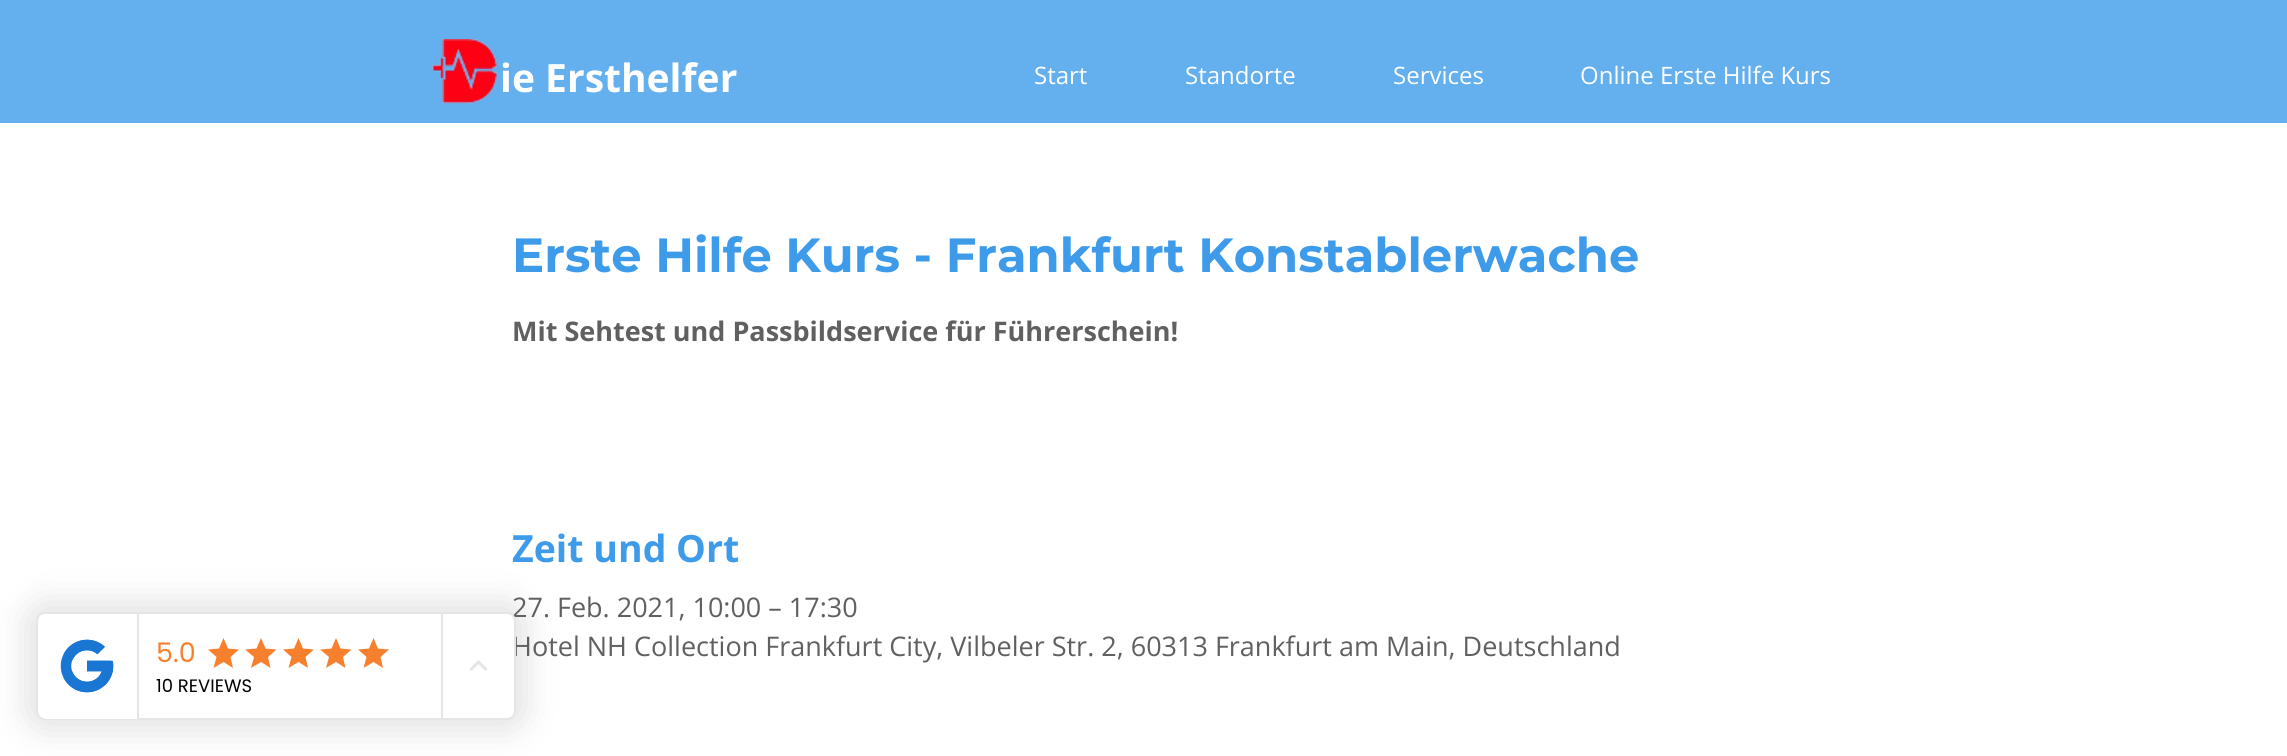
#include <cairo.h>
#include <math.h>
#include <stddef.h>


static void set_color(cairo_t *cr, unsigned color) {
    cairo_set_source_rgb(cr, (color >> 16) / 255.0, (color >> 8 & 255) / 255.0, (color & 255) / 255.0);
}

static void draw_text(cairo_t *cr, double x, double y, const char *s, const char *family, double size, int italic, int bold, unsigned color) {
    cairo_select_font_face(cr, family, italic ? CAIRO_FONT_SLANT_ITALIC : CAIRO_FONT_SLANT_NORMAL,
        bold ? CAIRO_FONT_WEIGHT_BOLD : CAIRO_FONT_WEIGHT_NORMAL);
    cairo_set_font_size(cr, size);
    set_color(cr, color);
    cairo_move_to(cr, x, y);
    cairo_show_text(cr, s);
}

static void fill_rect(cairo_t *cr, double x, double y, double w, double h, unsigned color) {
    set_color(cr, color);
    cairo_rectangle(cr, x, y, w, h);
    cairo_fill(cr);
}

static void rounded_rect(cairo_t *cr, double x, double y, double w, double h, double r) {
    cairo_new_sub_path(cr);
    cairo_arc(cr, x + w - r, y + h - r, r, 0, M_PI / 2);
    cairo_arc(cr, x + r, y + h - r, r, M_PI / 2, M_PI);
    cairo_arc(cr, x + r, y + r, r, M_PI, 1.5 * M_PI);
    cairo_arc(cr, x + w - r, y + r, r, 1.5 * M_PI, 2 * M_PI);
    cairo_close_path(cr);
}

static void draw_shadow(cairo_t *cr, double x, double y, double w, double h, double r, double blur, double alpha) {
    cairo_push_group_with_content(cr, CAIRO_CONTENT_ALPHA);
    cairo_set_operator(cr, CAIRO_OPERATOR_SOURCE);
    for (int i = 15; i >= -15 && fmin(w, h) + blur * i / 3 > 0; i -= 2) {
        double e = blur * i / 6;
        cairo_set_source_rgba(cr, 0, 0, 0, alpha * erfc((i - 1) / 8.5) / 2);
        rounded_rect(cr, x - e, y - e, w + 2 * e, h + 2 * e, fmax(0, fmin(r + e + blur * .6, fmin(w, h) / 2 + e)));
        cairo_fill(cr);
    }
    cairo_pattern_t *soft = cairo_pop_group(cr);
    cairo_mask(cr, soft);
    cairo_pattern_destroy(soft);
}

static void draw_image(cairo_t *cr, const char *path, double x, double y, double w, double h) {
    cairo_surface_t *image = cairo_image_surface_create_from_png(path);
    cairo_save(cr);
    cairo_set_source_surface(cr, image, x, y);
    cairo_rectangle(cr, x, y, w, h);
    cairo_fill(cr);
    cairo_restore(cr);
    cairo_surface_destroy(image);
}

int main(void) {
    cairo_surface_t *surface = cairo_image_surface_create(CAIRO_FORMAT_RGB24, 2287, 756);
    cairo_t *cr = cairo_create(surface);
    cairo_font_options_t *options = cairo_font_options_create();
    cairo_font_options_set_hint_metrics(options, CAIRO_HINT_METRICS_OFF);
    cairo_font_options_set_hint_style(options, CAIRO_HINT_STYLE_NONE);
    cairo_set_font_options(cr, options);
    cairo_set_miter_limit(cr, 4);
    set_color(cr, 0xFFFFFF);
    cairo_paint(cr);
    set_color(cr, 0x000000);
    draw_shadow(cr, 27, 603, 498, 126, 18, 18, 0.12);
    draw_text(cr, 512, 617, "27. Feb. 2021, 10:00 – 17:30", "Open Sans", 27, 0, 0, 0x606060);
    draw_text(cr, 512, 656, "Hotel NH Collection Frankfurt City, Vilbeler Str. 2, 60313 Frankfurt am Main, Deutschland", "Open Sans", 27, 0, 0, 0x606060);
    set_color(cr, 0xFFFFFF);
    rounded_rect(cr, 37, 613, 478, 106, 8);
    cairo_fill_preserve(cr);
    set_color(cr, 0xE5E5E5);
    cairo_stroke(cr);
    set_color(cr, 0xFFFFFF);
    cairo_new_path(cr);
    cairo_move_to(cr, 47, 614);
    cairo_line_to(cr, 138, 614);
    cairo_line_to(cr, 138, 719);
    cairo_line_to(cr, 47, 719);
    cairo_curve_to(cr, 42, 719, 38, 715, 38, 710);
    cairo_line_to(cr, 38, 623);
    cairo_curve_to(cr, 38, 618, 42, 614, 47, 614);
    cairo_close_path(cr);
    cairo_fill(cr);
    fill_rect(cr, 137, 614, 2, 105, 0xE5E5E5);
    draw_image(cr, "assets/img1.png", 60, 639, 54, 54);
    fill_rect(cr, 441, 614, 2, 105, 0xE5E5E5);
    draw_text(cr, 156, 662, "5.0", "Poppins", 27, 0, 0, 0xF7802F);
    cairo_new_path(cr);
    cairo_move_to(cr, 223.5, 662);
    cairo_line_to(cr, 233, 668);
    cairo_line_to(cr, 230.5, 657);
    cairo_line_to(cr, 239, 649.5);
    cairo_line_to(cr, 228, 648.5);
    cairo_line_to(cr, 223.5, 638);
    cairo_line_to(cr, 219, 648.5);
    cairo_line_to(cr, 208, 649.5);
    cairo_line_to(cr, 216.5, 657);
    cairo_line_to(cr, 213.5, 668);
    cairo_close_path(cr);
    cairo_fill(cr);
    cairo_new_path(cr);
    cairo_move_to(cr, 261, 662);
    cairo_line_to(cr, 270.5, 668);
    cairo_line_to(cr, 268, 657);
    cairo_line_to(cr, 276.5, 649.5);
    cairo_line_to(cr, 265.5, 648.5);
    cairo_line_to(cr, 261, 638);
    cairo_line_to(cr, 256.5, 648.5);
    cairo_line_to(cr, 245, 649.5);
    cairo_line_to(cr, 254, 657);
    cairo_line_to(cr, 251, 668);
    cairo_close_path(cr);
    cairo_fill(cr);
    cairo_new_path(cr);
    cairo_move_to(cr, 298.5, 662);
    cairo_line_to(cr, 308, 668);
    cairo_line_to(cr, 305.5, 657);
    cairo_line_to(cr, 314, 649.5);
    cairo_line_to(cr, 303, 648.5);
    cairo_line_to(cr, 298.5, 638);
    cairo_line_to(cr, 294, 648.5);
    cairo_line_to(cr, 283, 649.5);
    cairo_line_to(cr, 291.5, 657);
    cairo_line_to(cr, 288.5, 668);
    cairo_close_path(cr);
    cairo_fill(cr);
    cairo_new_path(cr);
    cairo_move_to(cr, 336, 662);
    cairo_line_to(cr, 345.5, 668);
    cairo_line_to(cr, 343, 657);
    cairo_line_to(cr, 351.5, 649.5);
    cairo_line_to(cr, 340.5, 648.5);
    cairo_line_to(cr, 336, 638);
    cairo_line_to(cr, 331.5, 648.5);
    cairo_line_to(cr, 320, 649.5);
    cairo_line_to(cr, 329, 657);
    cairo_line_to(cr, 326, 668);
    cairo_close_path(cr);
    cairo_fill(cr);
    cairo_new_path(cr);
    cairo_move_to(cr, 373.5, 662);
    cairo_line_to(cr, 383, 668);
    cairo_line_to(cr, 380.5, 657);
    cairo_line_to(cr, 389, 649.5);
    cairo_line_to(cr, 378, 648.5);
    cairo_line_to(cr, 373.5, 638);
    cairo_line_to(cr, 369, 648.5);
    cairo_line_to(cr, 358, 649.5);
    cairo_line_to(cr, 366.5, 657);
    cairo_line_to(cr, 363.5, 668);
    cairo_close_path(cr);
    cairo_fill(cr);
    draw_text(cr, 156, 692, "10 REVIEWS", "Poppins", 18, 0, 0, 0x000000);
    set_color(cr, 0xE5E5E5);
    cairo_new_path(cr);
    cairo_move_to(cr, 471.5, 671);
    cairo_line_to(cr, 478.5, 664);
    cairo_line_to(cr, 485.5, 671);
    cairo_line_to(cr, 487.5, 669);
    cairo_line_to(cr, 478.5, 660);
    cairo_line_to(cr, 469.5, 669);
    cairo_close_path(cr);
    cairo_fill(cr);
    fill_rect(cr, 0, 0, 2287, 123, 0x64AFEE);
    draw_image(cr, "assets/img2.png", 431, 39, 67, 65);
    draw_text(cr, 500, 92, "ie Ersthelfer", "Open Sans", 39, 0, 1, 0xFFFFFF);
    draw_text(cr, 1034, 84, "Start", "Open Sans", 24, 0, 0, 0xFFFFFF);
    draw_text(cr, 1185, 84, "Standorte", "Open Sans", 24, 0, 0, 0xFFFFFF);
    draw_text(cr, 1393, 84, "Services", "Open Sans", 24, 0, 0, 0xFFFFFF);
    draw_text(cr, 1580, 84, "Online Erste Hilfe Kurs", "Open Sans", 24, 0, 0, 0xFFFFFF);
    draw_text(cr, 512, 272, "Erste Hilfe Kurs - Frankfurt Konstablerwache", "Montserrat", 48, 0, 1, 0x3D9BE9);
    draw_text(cr, 512, 341, "Mit Sehtest und Passbildservice für Führerschein!", "Open Sans", 27, 0, 1, 0x606060);
    draw_text(cr, 512, 562, "Zeit und Ort", "Open Sans", 37.5, 0, 1, 0x3D9BE9);
    cairo_surface_write_to_png(surface, "output.png");
    cairo_font_options_destroy(options);
    cairo_destroy(cr);
    cairo_surface_destroy(surface);
    return 0;
}
